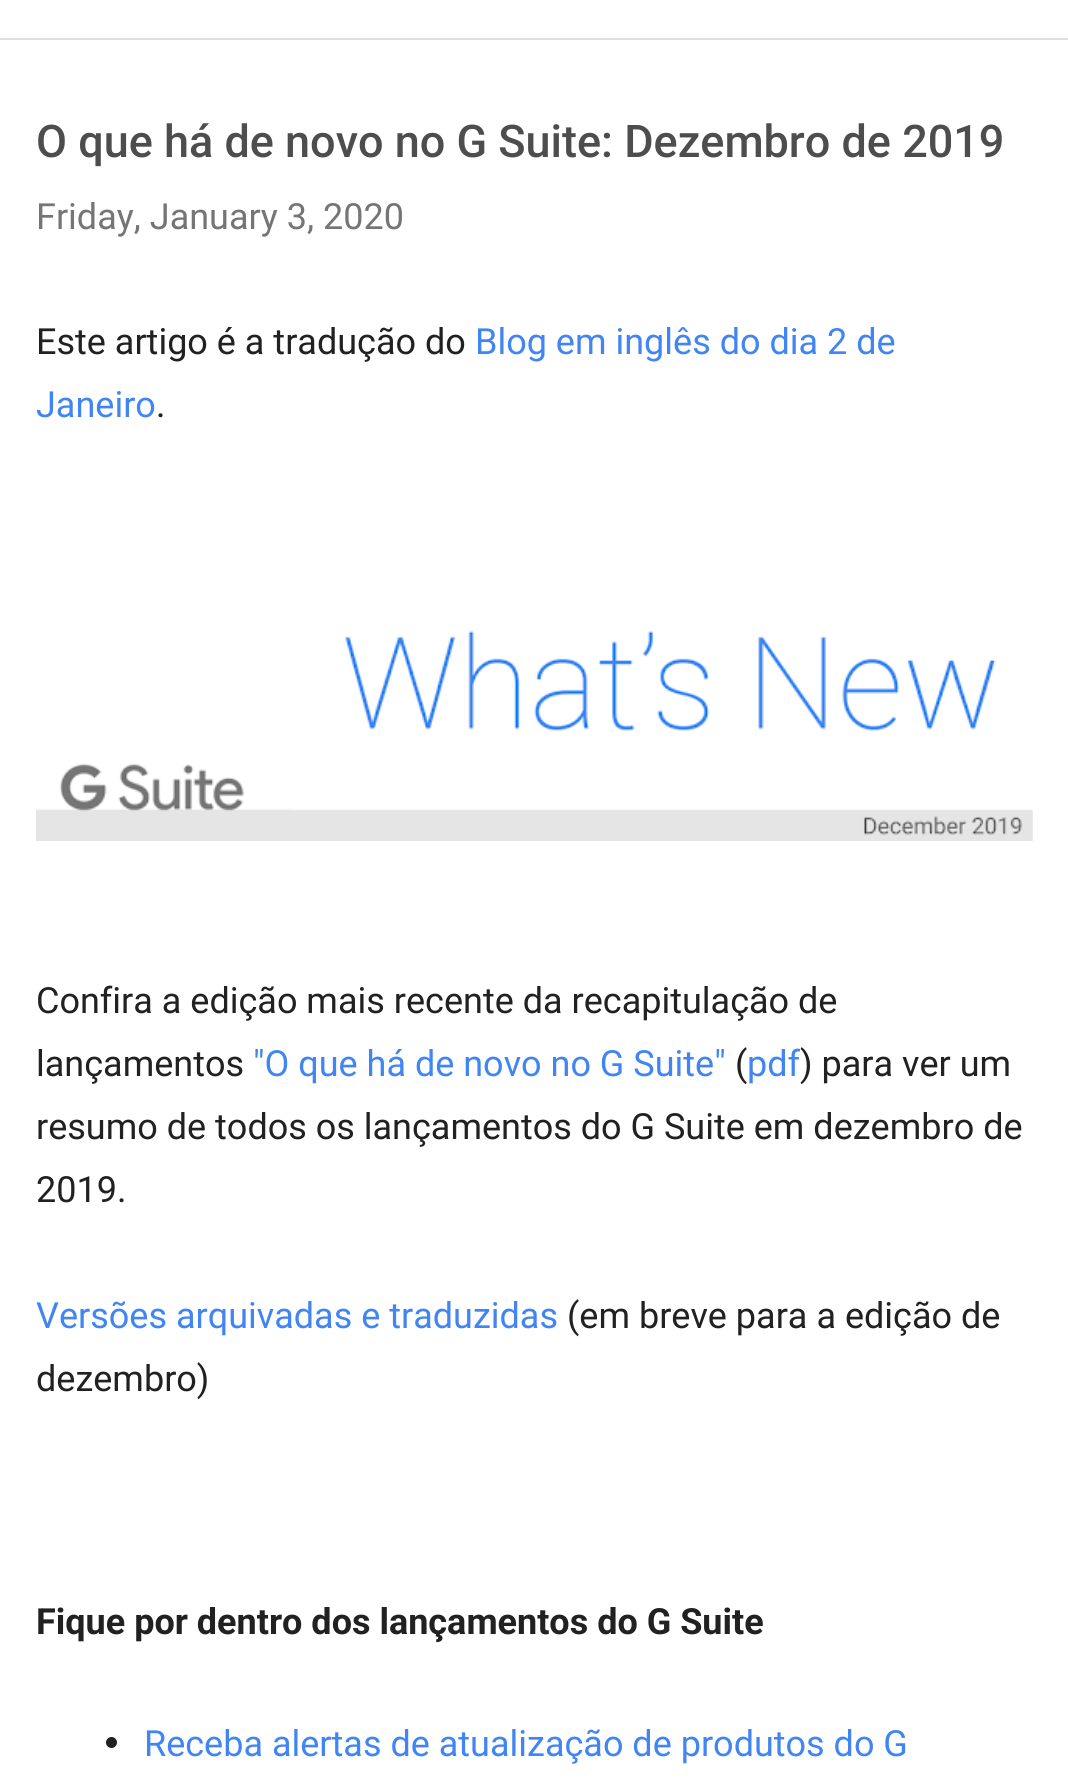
#include <cairo.h>
#include <math.h>
#include <stddef.h>


static void set_color(cairo_t *cr, unsigned color) {
    cairo_set_source_rgb(cr, (color >> 16) / 255.0, (color >> 8 & 255) / 255.0, (color & 255) / 255.0);
}

static void draw_text(cairo_t *cr, double x, double y, const char *s, const char *family, double size, int italic, int bold, unsigned color) {
    cairo_select_font_face(cr, family, italic ? CAIRO_FONT_SLANT_ITALIC : CAIRO_FONT_SLANT_NORMAL,
        bold ? CAIRO_FONT_WEIGHT_BOLD : CAIRO_FONT_WEIGHT_NORMAL);
    cairo_set_font_size(cr, size);
    set_color(cr, color);
    cairo_move_to(cr, x, y);
    cairo_show_text(cr, s);
}

static void fill_rect(cairo_t *cr, double x, double y, double w, double h, unsigned color) {
    set_color(cr, color);
    cairo_rectangle(cr, x, y, w, h);
    cairo_fill(cr);
}

static void draw_image(cairo_t *cr, const char *path, double x, double y, double w, double h) {
    cairo_surface_t *image = cairo_image_surface_create_from_png(path);
    cairo_save(cr);
    cairo_set_source_surface(cr, image, x, y);
    cairo_rectangle(cr, x, y, w, h);
    cairo_fill(cr);
    cairo_restore(cr);
    cairo_surface_destroy(image);
}

int main(void) {
    cairo_surface_t *surface = cairo_image_surface_create(CAIRO_FORMAT_RGB24, 1068, 1778);
    cairo_t *cr = cairo_create(surface);
    cairo_font_options_t *options = cairo_font_options_create();
    cairo_font_options_set_hint_metrics(options, CAIRO_HINT_METRICS_OFF);
    cairo_font_options_set_hint_style(options, CAIRO_HINT_STYLE_NONE);
    cairo_set_font_options(cr, options);
    cairo_set_miter_limit(cr, 4);
    set_color(cr, 0xFFFFFF);
    cairo_paint(cr);
    fill_rect(cr, 0, 38, 1068, 2, 0xE0E0E0);
    draw_text(cr, 36, 157, "O que há de novo no G Suite: Dezembro de 2019", "Roboto Medium", 45, 0, 0, 0x4D4D4D);
    draw_text(cr, 36, 229, "Friday, January 3, 2020", "Roboto", 36, 0, 0, 0x757575);
    draw_text(cr, 36, 354, "Este artigo é a tradução do", "Roboto", 36, 0, 0, 0x212121);
    draw_text(cr, 475, 354, "Blog em inglês do dia 2 de", "Roboto", 36, 0, 0, 0x4184F3);
    draw_text(cr, 36, 417, "Janeiro", "Roboto", 36, 0, 0, 0x4184F3);
    draw_text(cr, 156, 417, ".", "Roboto", 36, 0, 0, 0x212121);
    draw_image(cr, "assets/img1.png", 36, 630, 997, 211);
    draw_text(cr, 36, 1013, "Confira a edição mais recente da recapitulação de", "Roboto", 36, 0, 0, 0x212121);
    draw_text(cr, 36, 1076, "lançamentos", "Roboto", 36, 0, 0, 0x212121);
    draw_text(cr, 253, 1076, "\"O que há de novo no G Suite\"", "Roboto", 36, 0, 0, 0x4184F3);
    draw_text(cr, 735, 1076, "(", "Roboto", 36, 0, 0, 0x212121);
    draw_text(cr, 747, 1076, "pdf", "Roboto", 36, 0, 0, 0x4184F3);
    draw_text(cr, 800, 1076, ") para ver um", "Roboto", 36, 0, 0, 0x212121);
    draw_text(cr, 36, 1139, "resumo de todos os lançamentos do G Suite em dezembro de", "Roboto", 36, 0, 0, 0x212121);
    draw_text(cr, 36, 1202, "2019.", "Roboto", 36, 0, 0, 0x212121);
    draw_text(cr, 36, 1328, "Versões arquivadas e traduzidas", "Roboto", 36, 0, 0, 0x4184F3);
    draw_text(cr, 567, 1328, "(em breve para a edição de", "Roboto", 36, 0, 0, 0x212121);
    draw_text(cr, 36, 1391, "dezembro)", "Roboto", 36, 0, 0, 0x212121);
    draw_text(cr, 36, 1634, "Fique por dentro dos lançamentos do G Suite", "Roboto", 36, 0, 1, 0x212121);
    cairo_new_path(cr);
    cairo_arc(cr, 111.5, 1742.5, 5.5, 0, 2 * M_PI);
    cairo_fill(cr);
    draw_text(cr, 144, 1756, "Receba alertas de atualização de produtos do G", "Roboto", 36, 0, 0, 0x4184F3);
    cairo_surface_write_to_png(surface, "output.png");
    cairo_font_options_destroy(options);
    cairo_destroy(cr);
    cairo_surface_destroy(surface);
    return 0;
}
